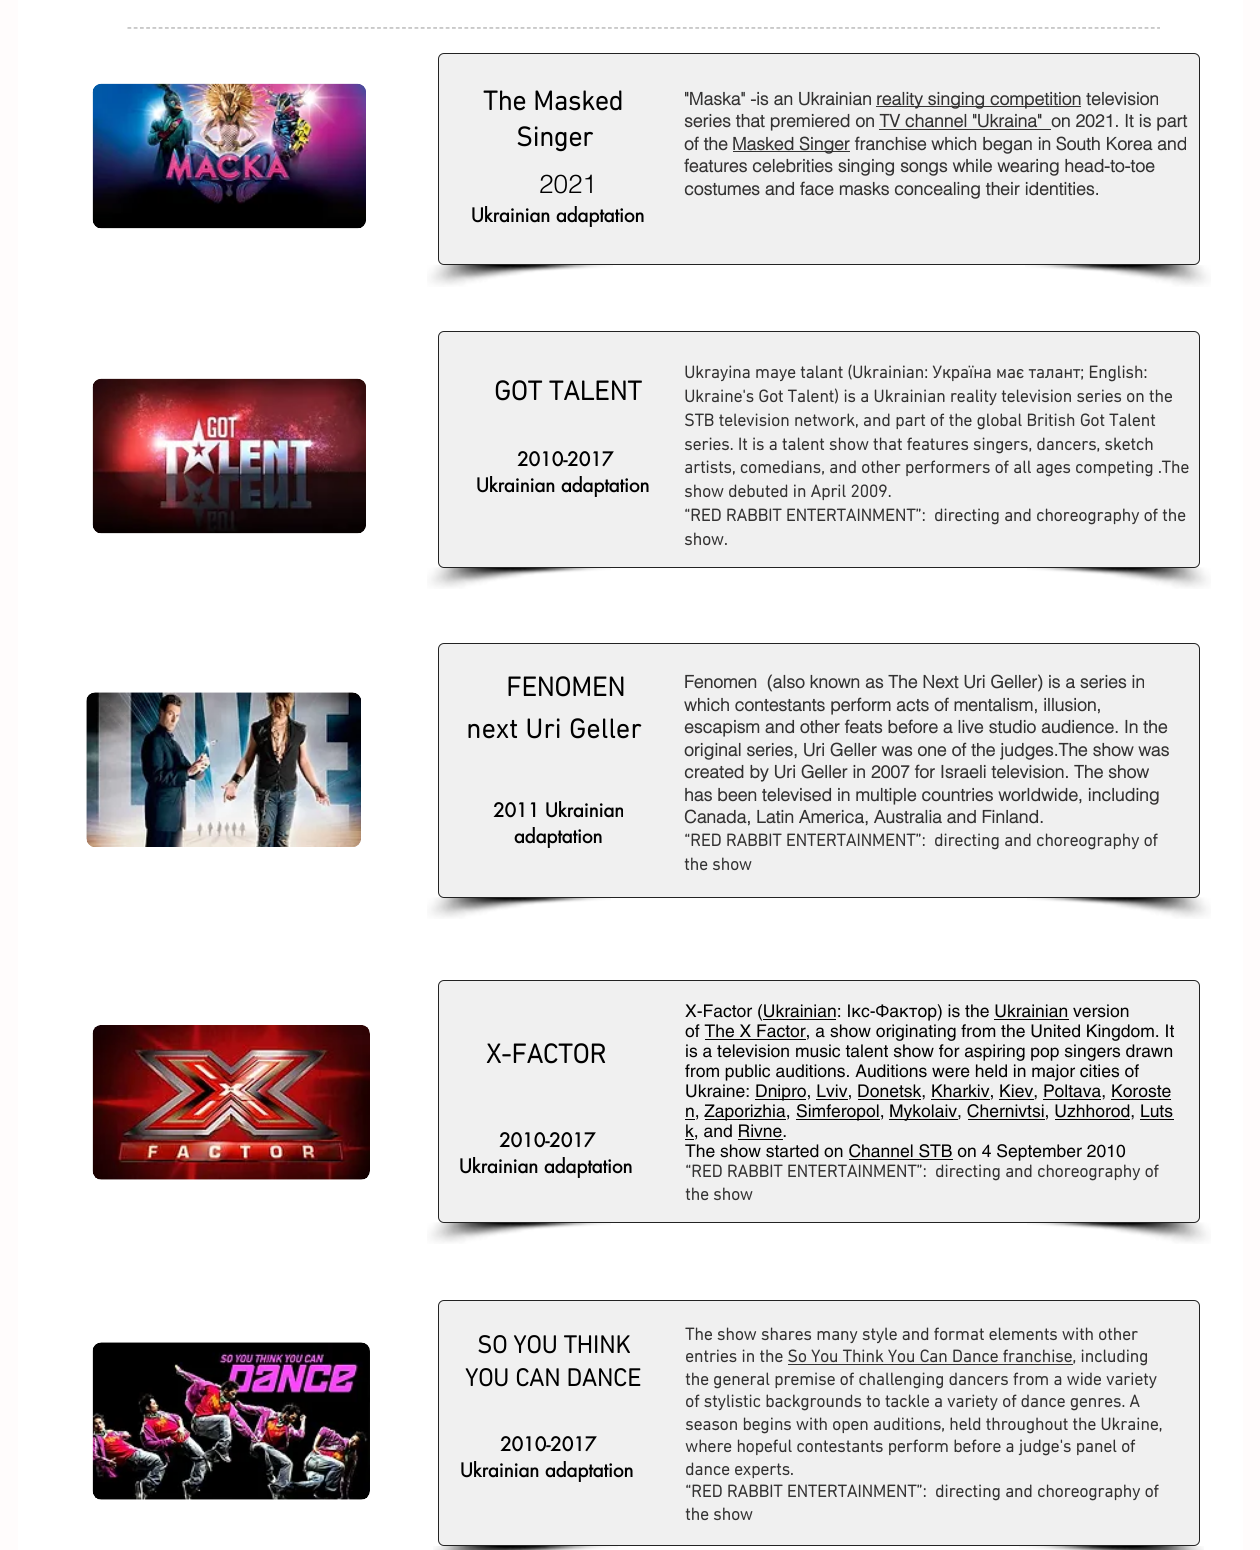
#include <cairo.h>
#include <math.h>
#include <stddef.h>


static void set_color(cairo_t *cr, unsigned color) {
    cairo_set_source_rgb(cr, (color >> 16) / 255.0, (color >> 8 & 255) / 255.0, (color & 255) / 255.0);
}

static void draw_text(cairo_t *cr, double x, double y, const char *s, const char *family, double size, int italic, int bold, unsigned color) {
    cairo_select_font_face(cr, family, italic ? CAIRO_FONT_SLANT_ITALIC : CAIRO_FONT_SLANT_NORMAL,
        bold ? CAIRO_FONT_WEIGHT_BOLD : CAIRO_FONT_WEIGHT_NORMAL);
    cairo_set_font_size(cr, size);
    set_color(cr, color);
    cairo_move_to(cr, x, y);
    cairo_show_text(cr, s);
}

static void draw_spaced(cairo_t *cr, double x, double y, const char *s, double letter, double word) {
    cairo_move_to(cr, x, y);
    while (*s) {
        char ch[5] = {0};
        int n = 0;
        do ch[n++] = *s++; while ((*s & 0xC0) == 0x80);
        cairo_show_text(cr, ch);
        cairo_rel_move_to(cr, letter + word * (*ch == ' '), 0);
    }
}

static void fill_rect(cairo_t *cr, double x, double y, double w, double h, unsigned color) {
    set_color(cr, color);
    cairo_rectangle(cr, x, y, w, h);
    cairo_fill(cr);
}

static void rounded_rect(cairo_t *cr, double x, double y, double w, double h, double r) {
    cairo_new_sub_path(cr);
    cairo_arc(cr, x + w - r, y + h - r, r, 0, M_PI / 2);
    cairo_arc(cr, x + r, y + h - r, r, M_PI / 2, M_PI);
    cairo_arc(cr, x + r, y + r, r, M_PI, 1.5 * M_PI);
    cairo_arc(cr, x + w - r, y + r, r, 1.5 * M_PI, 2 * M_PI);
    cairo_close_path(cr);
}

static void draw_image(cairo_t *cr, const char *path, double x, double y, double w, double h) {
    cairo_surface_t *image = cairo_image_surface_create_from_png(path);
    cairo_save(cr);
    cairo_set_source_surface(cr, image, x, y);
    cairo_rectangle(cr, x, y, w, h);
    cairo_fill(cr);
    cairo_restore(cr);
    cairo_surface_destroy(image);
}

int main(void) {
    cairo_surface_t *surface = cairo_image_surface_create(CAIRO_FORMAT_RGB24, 1260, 1550);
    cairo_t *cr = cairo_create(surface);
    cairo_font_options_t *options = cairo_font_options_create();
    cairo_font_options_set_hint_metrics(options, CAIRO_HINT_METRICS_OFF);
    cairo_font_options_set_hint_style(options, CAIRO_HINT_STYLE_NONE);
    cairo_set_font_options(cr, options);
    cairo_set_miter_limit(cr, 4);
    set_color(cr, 0xFFFCFC);
    cairo_paint(cr);
    fill_rect(cr, 18, 0, 1225, 1550, 0xFFFFFF);
    cairo_new_path(cr);
    cairo_move_to(cr, 127.5, 28);
    cairo_line_to(cr, 1160, 28);
    set_color(cr, 0xA6A6A6);
    cairo_set_line_width(cr, 1.2);
    cairo_set_dash(cr, (double[]){3.75, 2.49}, 2, 0);
    cairo_stroke(cr);
    cairo_new_path(cr);
    cairo_move_to(cr, 127.5, 29.5);
    cairo_line_to(cr, 1160, 29.5);
    set_color(cr, 0xFFFFFF);
    cairo_stroke(cr);
    draw_image(cr, "assets/img1.png", 92, 83, 274, 146);
    draw_image(cr, "assets/img2.png", 427, 264, 186, 23);
    set_color(cr, 0xF0F0F0);
    rounded_rect(cr, 438.5, 53.5, 761, 211, 5.5);
    cairo_fill_preserve(cr);
    set_color(cr, 0x232323);
    cairo_set_line_width(cr, 1);
    cairo_set_dash(cr, NULL, 0, 0);
    cairo_stroke(cr);
    draw_text(cr, 483, 110, "The Masked", "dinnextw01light", 27.5, 0, 1, 0x000000);
    draw_text(cr, 516, 146, "Singer", "dinnextw01light", 27.5, 0, 1, 0x000000);
    draw_text(cr, 684, 105, "\"Maska\" -is an Ukrainian", "helvetica", 17.5, 0, 1, 0x333232);
    fill_rect(cr, 876, 106, 205, 1, 0x333232);
    draw_text(cr, 876, 105, "reality singing competition television", "helvetica", 17.5, 0, 1, 0x333232);
    draw_text(cr, 684, 127, "series that premiered on TV channel \"Ukraina\"", "helvetica", 17.5, 0, 1, 0x333232);
    draw_text(cr, 1051, 127, "on 2021. It is part", "helvetica", 17.5, 0, 1, 0x333232);
    fill_rect(cr, 879, 129, 172, 1, 0x333232);
    draw_text(cr, 684, 150, "of the", "helvetica", 17.5, 0, 1, 0x333232);
    fill_rect(cr, 733, 151, 117, 1, 0x333232);
    draw_text(cr, 732, 150, "Masked Singer franchise which began in South Korea and", "helvetica", 17.5, 0, 1, 0x333232);
    draw_text(cr, 684, 172, "features celebrities singing songs while wearing head-to-toe", "helvetica", 17.5, 0, 1, 0x333232);
    draw_text(cr, 684, 195, "costumes and face masks concealing their identities.", "helvetica", 17.5, 0, 1, 0x333232);
    draw_text(cr, 539, 193, "2021", "helvetica Light", 26, 0, 0, 0x000000);
    draw_text(cr, 471, 222, "Ukrainian adaptation", "futura", 18.75, 0, 1, 0x000000);
    draw_image(cr, "assets/img3.png", 1025, 265, 186, 22);
    draw_image(cr, "assets/img4.png", 92, 378, 274, 156);
    draw_image(cr, "assets/img5.png", 427, 567, 184, 22);
    draw_image(cr, "assets/img6.png", 1027, 567, 184, 22);
    set_color(cr, 0xF0F0F0);
    rounded_rect(cr, 438.5, 331.5, 761, 236, 5.5);
    cairo_fill_preserve(cr);
    set_color(cr, 0x232323);
    cairo_stroke(cr);
    draw_text(cr, 494, 400, "GOT TALENT", "dinnextw01light", 27.5, 0, 1, 0x000000);
    draw_text(cr, 684, 378, "Ukrayina maye talant (Ukrainian: Україна має талант; English:", "dinnextw01light", 17.5, 0, 1, 0x333232);
    draw_text(cr, 684, 402, "Ukraine's Got Talent) is a Ukrainian reality television series on the", "dinnextw01light", 17.5, 0, 1, 0x333232);
    draw_text(cr, 684, 426, "STB television network, and part of the global British Got Talent", "dinnextw01light", 17.5, 0, 1, 0x333232);
    draw_text(cr, 684, 450, "series. It is a talent show that features singers, dancers, sketch", "dinnextw01light", 17.5, 0, 1, 0x333232);
    draw_text(cr, 684, 473, "artists, comedians, and other performers of all ages competing .The", "dinnextw01light", 17.5, 0, 1, 0x333232);
    draw_text(cr, 684, 497, "show debuted in April 2009.", "dinnextw01light", 17.5, 0, 1, 0x333232);
    draw_text(cr, 684, 521, "“RED RABBIT ENTERTAINMENT”:  directing and choreography of the", "dinnextw01light", 17.5, 0, 1, 0x333232);
    draw_text(cr, 684, 545, "show.", "dinnextw01light", 17.5, 0, 1, 0x333232);
    draw_text(cr, 517, 466, "2010-2017", "futura", 18.75, 0, 1, 0x000000);
    draw_text(cr, 476, 492, "Ukrainian adaptation", "futura", 18.75, 0, 1, 0x000000);
    draw_image(cr, "assets/img7.png", 86, 692, 275, 155);
    draw_image(cr, "assets/img5.png", 427, 897, 184, 22);
    draw_image(cr, "assets/img6.png", 1027, 897, 184, 22);
    set_color(cr, 0xF0F0F0);
    rounded_rect(cr, 438.5, 643.5, 761, 254, 5.5);
    cairo_fill_preserve(cr);
    set_color(cr, 0x232323);
    cairo_stroke(cr);
    draw_text(cr, 506, 696, "FENOMEN", "dinnextw01light", 27.5, 0, 1, 0x000000);
    draw_text(cr, 684, 688, "Fenomen  (also known as The Next Uri Geller) is a series in", "helvetica", 17.5, 0, 1, 0x333232);
    draw_text(cr, 684, 711, "which contestants perform acts of mentalism, illusion,", "helvetica", 17.5, 0, 1, 0x333232);
    draw_text(cr, 684, 733, "escapism and other feats before a live studio audience. In the", "helvetica", 17.5, 0, 1, 0x333232);
    draw_text(cr, 684, 756, "original series, Uri Geller was one of the judges.The show was", "helvetica", 17.5, 0, 1, 0x333232);
    draw_text(cr, 684, 778, "created by Uri Geller in 2007 for Israeli television. The show", "helvetica", 17.5, 0, 1, 0x333232);
    draw_text(cr, 684, 801, "has been televised in multiple countries worldwide, including", "helvetica", 17.5, 0, 1, 0x333232);
    draw_text(cr, 684, 823, "Canada, Latin America, Australia and Finland.", "helvetica", 17.5, 0, 1, 0x333232);
    draw_text(cr, 684, 846, "“RED RABBIT ENTERTAINMENT”:  directing and choreography of", "dinnextw01light", 17.5, 0, 1, 0x333232);
    draw_text(cr, 684, 870, "the show", "dinnextw01light", 17.5, 0, 1, 0x333232);
    cairo_set_font_size(cr, 27.5);
    set_color(cr, 0x000000);
    draw_spaced(cr, 466, 738, "next Uri Geller", 0.5, 0);
    draw_text(cr, 493, 817, "2011 Ukrainian", "futura", 18.75, 0, 1, 0x000000);
    draw_text(cr, 514, 843, "adaptation", "futura", 18.75, 0, 1, 0x000000);
    draw_image(cr, "assets/img8.png", 92, 1025, 278, 155);
    draw_image(cr, "assets/img5.png", 427, 1222, 184, 22);
    draw_image(cr, "assets/img6.png", 1027, 1222, 184, 22);
    set_color(cr, 0xF0F0F0);
    rounded_rect(cr, 438.5, 980.5, 761, 242, 5.5);
    cairo_fill_preserve(cr);
    set_color(cr, 0x232323);
    cairo_stroke(cr);
    draw_text(cr, 486, 1063, "X-FACTOR", "dinnextw01light", 27.5, 0, 1, 0x000000);
    draw_text(cr, 685, 1017, "X-Factor (Ukrainian: Ікс-Фактор) is the Ukrainian version", "helvetica", 17.5, 0, 0, 0x000000);
    fill_rect(cr, 763, 1019, 73, 1, 0x000000);
    fill_rect(cr, 994, 1019, 75, 1, 0x000000);
    draw_text(cr, 685, 1037, "of The X Factor, a show originating from the United Kingdom. It", "helvetica", 17.5, 0, 0, 0x000000);
    fill_rect(cr, 705, 1039, 101, 1, 0x000000);
    draw_text(cr, 685, 1057, "is a television music talent show for aspiring pop singers drawn", "helvetica", 17.5, 0, 0, 0x000000);
    draw_text(cr, 685, 1077, "from public auditions. Auditions were held in major cities of", "helvetica", 17.5, 0, 0, 0x000000);
    draw_text(cr, 685, 1097, "Ukraine:", "helvetica", 17.5, 0, 0, 0x000000);
    fill_rect(cr, 755, 1099, 51, 1, 0x000000);
    draw_text(cr, 755, 1097, "Dnipro, Lviv, Donetsk, Kharkiv, Kiev, Poltava, Koroste", "helvetica", 17.5, 0, 0, 0x000000);
    fill_rect(cr, 816, 1099, 32, 1, 0x000000);
    fill_rect(cr, 858, 1099, 63, 1, 0x000000);
    fill_rect(cr, 931, 1099, 59, 1, 0x000000);
    fill_rect(cr, 999, 1099, 35, 1, 0x000000);
    fill_rect(cr, 1043, 1099, 58, 1, 0x000000);
    fill_rect(cr, 1111, 1099, 60, 1, 0x000000);
    fill_rect(cr, 685, 1119, 10, 1, 0x000000);
    draw_text(cr, 685, 1117, "n,", "helvetica", 17.5, 0, 0, 0x000000);
    fill_rect(cr, 705, 1119, 81, 1, 0x000000);
    draw_text(cr, 704, 1117, "Zaporizhia,", "helvetica", 17.5, 0, 0, 0x000000);
    fill_rect(cr, 796, 1119, 84, 1, 0x000000);
    draw_text(cr, 796, 1117, "Simferopol,", "helvetica", 17.5, 0, 0, 0x000000);
    fill_rect(cr, 889, 1119, 69, 1, 0x000000);
    draw_text(cr, 889, 1117, "Mykolaiv, Chernivtsi, Uzhhorod, Luts", "helvetica", 17.5, 0, 0, 0x000000);
    fill_rect(cr, 968, 1119, 77, 1, 0x000000);
    fill_rect(cr, 1055, 1119, 75, 1, 0x000000);
    fill_rect(cr, 1140, 1119, 34, 1, 0x000000);
    fill_rect(cr, 685, 1139, 9, 1, 0x000000);
    draw_text(cr, 685, 1137, "k, and Rivne.", "helvetica", 17.5, 0, 0, 0x000000);
    fill_rect(cr, 738, 1139, 45, 1, 0x000000);
    draw_text(cr, 685, 1157, "The show started on Channel STB on 4 September 2010", "helvetica", 17.5, 0, 0, 0x000000);
    fill_rect(cr, 849, 1159, 104, 1, 0x000000);
    draw_text(cr, 685, 1177, "“RED RABBIT ENTERTAINMENT”:  directing and choreography of", "dinnextw01light", 17.5, 0, 1, 0x333232);
    draw_text(cr, 685, 1200, "the show", "dinnextw01light", 17.5, 0, 1, 0x333232);
    draw_text(cr, 499, 1147, "2010-2017", "futura", 18.75, 0, 1, 0x000000);
    draw_text(cr, 459, 1173, "Ukrainian adaptation", "futura", 18.75, 0, 1, 0x000000);
    draw_image(cr, "assets/img9.png", 92, 1342, 278, 158);
    set_color(cr, 0xF0F0F0);
    rounded_rect(cr, 438.5, 1300.5, 761, 245, 5.5);
    cairo_fill_preserve(cr);
    set_color(cr, 0x232323);
    cairo_stroke(cr);
    draw_text(cr, 477, 1353, "SO YOU THINK", "dinnextw01light", 25, 0, 1, 0x000000);
    draw_text(cr, 465, 1386, "YOU CAN DANCE", "dinnextw01light", 25, 0, 1, 0x000000);
    draw_text(cr, 685, 1340, "The show shares many style and format elements with other", "dinnextw01light", 17.5, 0, 1, 0x333232);
    draw_text(cr, 685, 1362, "entries in the So You Think You Can Dance franchise, including", "dinnextw01light", 17.5, 0, 1, 0x333232);
    fill_rect(cr, 788, 1364, 285, 1, 0x333232);
    draw_text(cr, 685, 1385, "the general premise of challenging dancers from a wide variety", "dinnextw01light", 17.5, 0, 1, 0x333232);
    draw_text(cr, 685, 1407, "of stylistic backgrounds to tackle a variety of dance genres. A", "dinnextw01light", 17.5, 0, 1, 0x333232);
    draw_text(cr, 685, 1430, "season begins with open auditions, held throughout the Ukraine,", "dinnextw01light", 17.5, 0, 1, 0x333232);
    draw_text(cr, 685, 1452, "where hopeful contestants perform before a judge's panel of", "dinnextw01light", 17.5, 0, 1, 0x333232);
    draw_text(cr, 685, 1475, "dance experts.", "dinnextw01light", 17.5, 0, 1, 0x333232);
    draw_text(cr, 685, 1497, "“RED RABBIT ENTERTAINMENT”:  directing and choreography of", "dinnextw01light", 17.5, 0, 1, 0x333232);
    draw_text(cr, 685, 1520, "the show", "dinnextw01light", 17.5, 0, 1, 0x333232);
    draw_text(cr, 500, 1451, "2010-2017", "futura", 18.75, 0, 1, 0x000000);
    draw_text(cr, 460, 1477, "Ukrainian adaptation", "futura", 18.75, 0, 1, 0x000000);
    draw_image(cr, "assets/img10.png", 433, 1546, 185, 4);
    draw_image(cr, "assets/img11.png", 1019, 1546, 185, 4);
    cairo_surface_write_to_png(surface, "output.png");
    cairo_font_options_destroy(options);
    cairo_destroy(cr);
    cairo_surface_destroy(surface);
    return 0;
}
